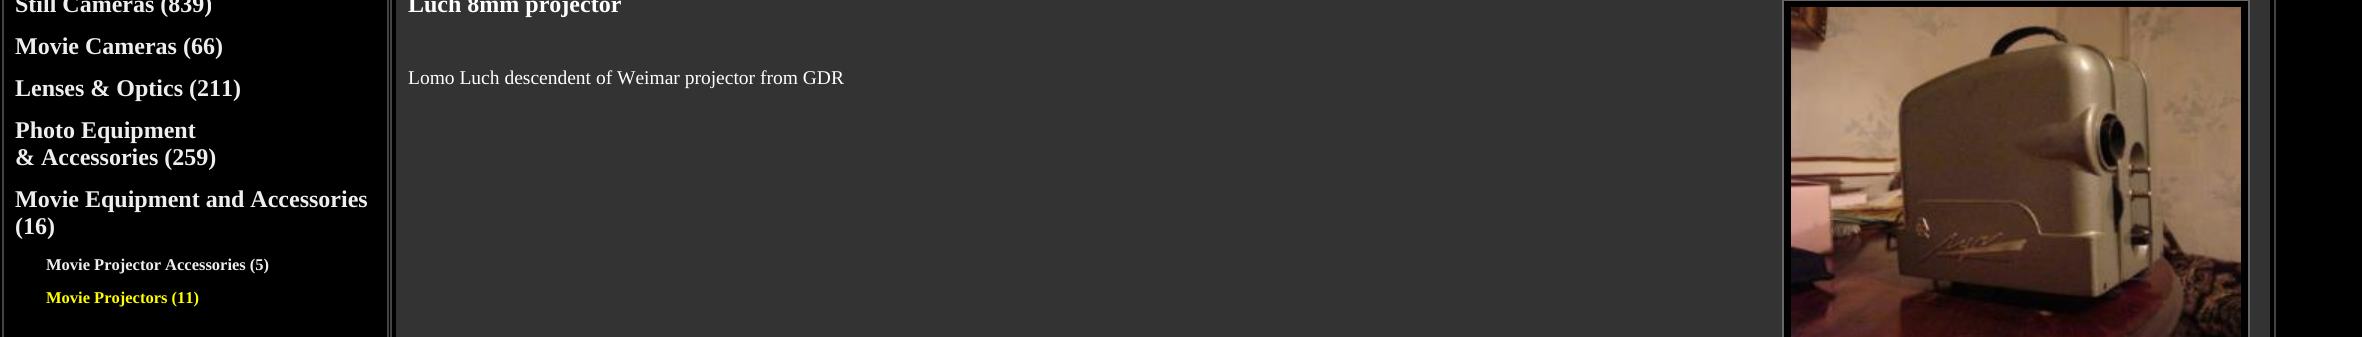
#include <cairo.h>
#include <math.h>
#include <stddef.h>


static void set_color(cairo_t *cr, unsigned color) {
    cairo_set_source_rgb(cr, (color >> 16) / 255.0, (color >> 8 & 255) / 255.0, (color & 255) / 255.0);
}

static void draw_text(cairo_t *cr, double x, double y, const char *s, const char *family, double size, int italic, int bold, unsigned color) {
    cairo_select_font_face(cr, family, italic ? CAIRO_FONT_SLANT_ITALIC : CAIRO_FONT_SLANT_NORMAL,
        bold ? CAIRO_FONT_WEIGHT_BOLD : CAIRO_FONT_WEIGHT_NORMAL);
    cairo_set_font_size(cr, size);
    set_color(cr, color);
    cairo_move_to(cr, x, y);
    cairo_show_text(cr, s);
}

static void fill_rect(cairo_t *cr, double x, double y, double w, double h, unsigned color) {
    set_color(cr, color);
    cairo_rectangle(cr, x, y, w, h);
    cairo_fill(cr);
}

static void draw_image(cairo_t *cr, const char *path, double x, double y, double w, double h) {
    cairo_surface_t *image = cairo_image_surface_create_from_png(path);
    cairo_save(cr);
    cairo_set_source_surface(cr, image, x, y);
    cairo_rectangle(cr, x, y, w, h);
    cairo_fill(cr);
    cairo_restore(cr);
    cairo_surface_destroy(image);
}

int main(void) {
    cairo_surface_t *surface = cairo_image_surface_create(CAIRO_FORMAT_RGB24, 2362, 337);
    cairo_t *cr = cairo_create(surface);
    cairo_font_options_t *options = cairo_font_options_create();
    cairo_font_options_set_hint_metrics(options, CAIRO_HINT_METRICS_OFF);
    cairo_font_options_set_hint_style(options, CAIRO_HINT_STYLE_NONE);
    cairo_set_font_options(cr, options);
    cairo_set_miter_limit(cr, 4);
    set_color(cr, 0x000000);
    cairo_paint(cr);
    cairo_rectangle(cr, 3, -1, 385, 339);
    set_color(cr, 0x444444);
    cairo_stroke(cr);
    draw_text(cr, 15, 12, "Still Cameras (839)", "Liberation Serif", 24, 0, 1, 0xEEEEEE);
    draw_text(cr, 15, 54, "Movie Cameras (66)", "Liberation Serif", 24, 0, 1, 0xEEEEEE);
    draw_text(cr, 15, 96, "Lenses & Optics (211)", "Liberation Serif", 24, 0, 1, 0xEEEEEE);
    draw_text(cr, 15, 138, "Photo Equipment", "Liberation Serif", 24, 0, 1, 0xEEEEEE);
    draw_text(cr, 15, 165, "& Accessories (259)", "Liberation Serif", 24, 0, 1, 0xEEEEEE);
    draw_text(cr, 15, 207, "Movie Equipment and Accessories", "Liberation Serif", 24, 0, 1, 0xEEEEEE);
    draw_text(cr, 15, 234, "(16)", "Liberation Serif", 24, 0, 1, 0xEEEEEE);
    draw_text(cr, 46, 270, "Movie Projector Accessories (5)", "Liberation Serif", 16.5, 0, 1, 0xEEEEEE);
    draw_text(cr, 46, 303, "Movie Projectors (11)", "Liberation Serif", 16.5, 0, 1, 0xFFFF00);
    cairo_rectangle(cr, 391, -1, 1884, 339);
    set_color(cr, 0x444444);
    cairo_stroke(cr);
    fill_rect(cr, 396, 0, 1874, 337, 0x333333);
    draw_text(cr, 408, 12, "Luch 8mm projector", "Liberation Serif", 24, 0, 1, 0xFFFFFF);
    draw_text(cr, 408, 84, "Lomo Luch descendent of Weimar projector from GDR", "Liberation Serif", 19.5, 0, 0, 0xFFFFFF);
    set_color(cr, 0x000000);
    cairo_rectangle(cr, 1783, 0, 466, 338);
    cairo_fill_preserve(cr);
    set_color(cr, 0x666666);
    cairo_stroke(cr);
    draw_image(cr, "assets/img1.png", 1791, 7, 450, 330);
    cairo_surface_write_to_png(surface, "output.png");
    cairo_font_options_destroy(options);
    cairo_destroy(cr);
    cairo_surface_destroy(surface);
    return 0;
}
